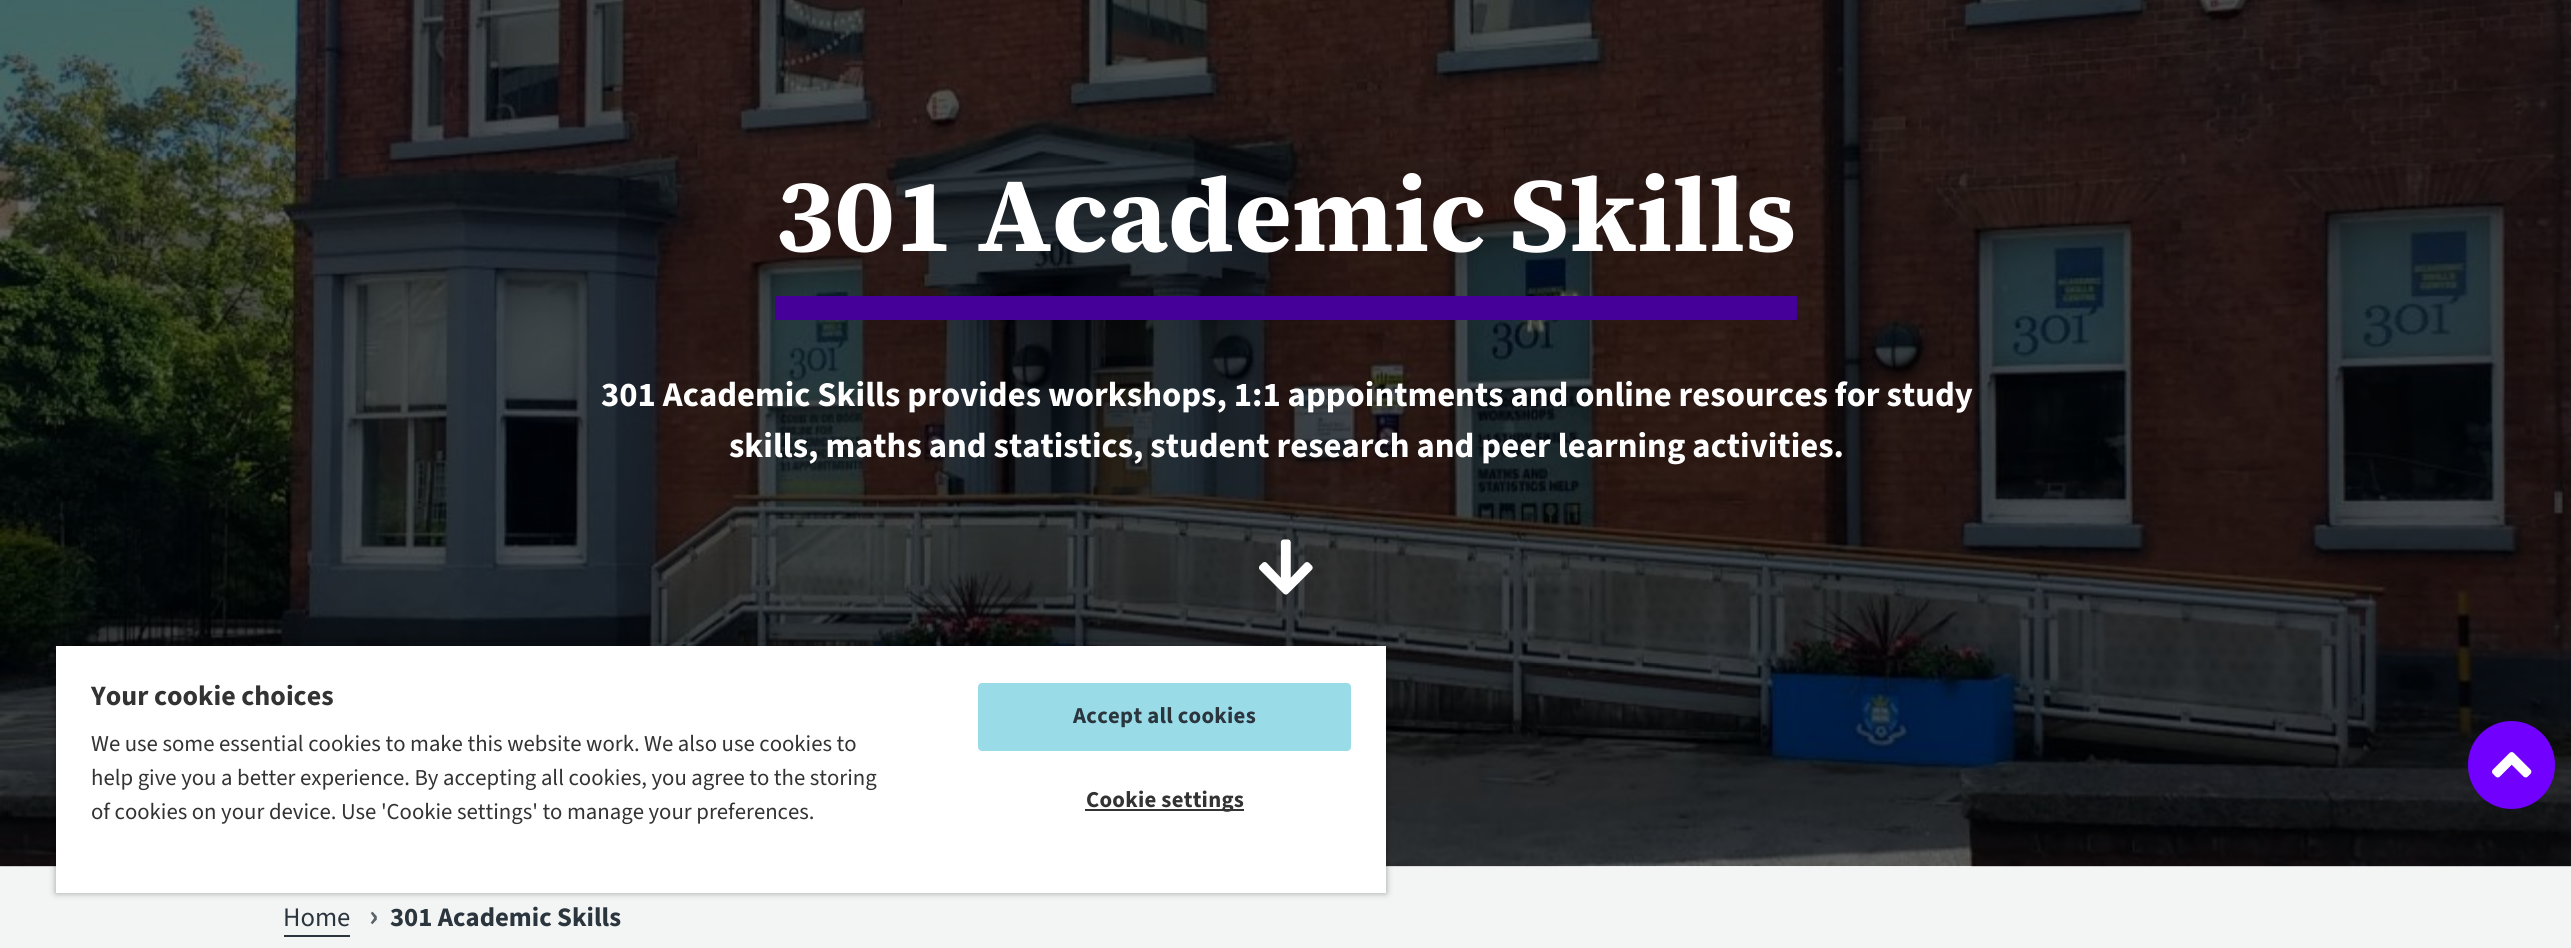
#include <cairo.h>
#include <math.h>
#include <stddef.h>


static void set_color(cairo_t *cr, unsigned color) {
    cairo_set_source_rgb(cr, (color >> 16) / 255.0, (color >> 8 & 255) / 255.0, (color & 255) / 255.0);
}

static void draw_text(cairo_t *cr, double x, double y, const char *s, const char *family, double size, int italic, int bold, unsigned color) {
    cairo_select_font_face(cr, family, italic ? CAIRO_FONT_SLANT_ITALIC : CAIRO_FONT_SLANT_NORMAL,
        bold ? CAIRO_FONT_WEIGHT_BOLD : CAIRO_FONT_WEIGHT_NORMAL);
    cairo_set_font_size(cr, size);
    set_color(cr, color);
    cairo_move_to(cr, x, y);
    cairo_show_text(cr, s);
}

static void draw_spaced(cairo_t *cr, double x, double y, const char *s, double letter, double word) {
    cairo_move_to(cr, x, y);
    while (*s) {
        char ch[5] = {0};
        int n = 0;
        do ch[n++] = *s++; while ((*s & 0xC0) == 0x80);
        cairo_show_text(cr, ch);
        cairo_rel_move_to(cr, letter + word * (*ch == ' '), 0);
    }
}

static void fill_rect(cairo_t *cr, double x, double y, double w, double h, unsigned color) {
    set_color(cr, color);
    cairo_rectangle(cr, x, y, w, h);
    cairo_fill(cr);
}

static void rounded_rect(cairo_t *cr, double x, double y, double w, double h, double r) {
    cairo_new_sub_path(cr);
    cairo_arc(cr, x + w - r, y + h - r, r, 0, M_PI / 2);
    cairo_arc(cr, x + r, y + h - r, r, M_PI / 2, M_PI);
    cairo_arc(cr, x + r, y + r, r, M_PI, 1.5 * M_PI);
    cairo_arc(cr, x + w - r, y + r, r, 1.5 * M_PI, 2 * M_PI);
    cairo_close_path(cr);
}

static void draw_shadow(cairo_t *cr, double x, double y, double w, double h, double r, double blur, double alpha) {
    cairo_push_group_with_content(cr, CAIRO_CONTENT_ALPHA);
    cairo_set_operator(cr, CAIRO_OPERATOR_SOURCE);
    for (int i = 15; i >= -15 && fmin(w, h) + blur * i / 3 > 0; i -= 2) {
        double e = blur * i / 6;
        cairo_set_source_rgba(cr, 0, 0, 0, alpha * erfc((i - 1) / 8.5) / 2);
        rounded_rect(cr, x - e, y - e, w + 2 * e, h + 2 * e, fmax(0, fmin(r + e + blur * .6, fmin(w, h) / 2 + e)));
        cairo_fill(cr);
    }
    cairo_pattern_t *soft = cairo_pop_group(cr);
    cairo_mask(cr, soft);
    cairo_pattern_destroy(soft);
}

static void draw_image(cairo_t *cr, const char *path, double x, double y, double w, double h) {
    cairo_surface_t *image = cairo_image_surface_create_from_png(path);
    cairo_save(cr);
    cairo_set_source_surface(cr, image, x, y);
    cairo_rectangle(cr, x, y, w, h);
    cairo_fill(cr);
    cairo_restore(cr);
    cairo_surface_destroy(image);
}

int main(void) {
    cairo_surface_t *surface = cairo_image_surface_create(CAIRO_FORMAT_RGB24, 2571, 948);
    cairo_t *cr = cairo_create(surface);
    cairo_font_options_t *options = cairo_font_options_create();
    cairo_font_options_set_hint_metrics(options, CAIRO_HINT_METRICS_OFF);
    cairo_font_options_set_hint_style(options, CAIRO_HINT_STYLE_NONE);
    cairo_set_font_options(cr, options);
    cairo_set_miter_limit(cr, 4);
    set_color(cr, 0xF3F4F4);
    cairo_paint(cr);
    fill_rect(cr, 0, 0, 2571, 866, 0x000000);
    draw_image(cr, "assets/img1.png", 0, 0, 2571, 867);
    fill_rect(cr, 775, 296, 1022, 24, 0x440099);
    draw_text(cr, 775, 251, "301 Academic Skills", "Source Serif 4", 105, 0, 1, 0xFFFFFF);
    draw_text(cr, 601, 406, "301 Academic Skills provides workshops, 1:1 appointments and online resources for study", "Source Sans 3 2 ExtraLight", 34.65, 0, 0, 0xFFFFFF);
    draw_text(cr, 729, 457, "skills, maths and statistics, student research and peer learning activities.", "Source Sans 3 2 ExtraLight", 34.65, 0, 0, 0xFFFFFF);
    draw_image(cr, "assets/img2.png", 1259, 539, 54, 56);
    draw_text(cr, 283, 926, "Home", "Source Sans 3 ExtraLight", 26.75, 0, 0, 0x2B353E);
    fill_rect(cr, 284, 935, 66, 2, 0x2B353E);
    draw_text(cr, 369, 926, "›", "Source Sans 3 2 ExtraLight", 32, 0, 0, 0x5A6269);
    draw_text(cr, 390, 926, "301 Academic Skills", "Source Sans 3 2 ExtraLight", 26.75, 0, 0, 0x2B353E);
    cairo_save(cr);
    cairo_set_fill_rule(cr, CAIRO_FILL_RULE_EVEN_ODD);
    cairo_new_path(cr);
    cairo_move_to(cr, 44, 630);
    cairo_line_to(cr, 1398, 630);
    cairo_line_to(cr, 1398, 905);
    cairo_line_to(cr, 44, 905);
    cairo_close_path(cr);
    cairo_move_to(cr, 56, 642);
    cairo_line_to(cr, 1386, 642);
    cairo_line_to(cr, 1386, 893);
    cairo_line_to(cr, 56, 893);
    cairo_close_path(cr);
    cairo_clip(cr);
    set_color(cr, 0x000000);
    draw_shadow(cr, 56, 642, 1330, 251, 0, 3.5, 0.35);
    cairo_restore(cr);
    cairo_save(cr);
    cairo_rectangle(cr, 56, 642, 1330, 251);
    cairo_clip(cr);
    set_color(cr, 0x000000);
    draw_shadow(cr, 56, 646, 1330, 247, 0, 3.5, 0.2);
    cairo_restore(cr);
    fill_rect(cr, 56, 646, 1330, 247, 0xFFFFFF);
    draw_text(cr, 91, 705, "Your cookie choices", "Source Sans 3 2 ExtraLight", 28, 0, 0, 0x333333);
    draw_text(cr, 91, 751, "We use some essential cookies to make this website work. We also use cookies to", "Source Sans 3 ExtraLight", 22.75, 0, 0, 0x333333);
    draw_text(cr, 91, 785, "help give you a better experience. By accepting all cookies, you agree to the storing", "Source Sans 3 ExtraLight", 22.75, 0, 0, 0x333333);
    draw_text(cr, 91, 819, "of cookies on your device. Use 'Cookie settings' to manage your preferences.", "Source Sans 3 ExtraLight", 22.75, 0, 0, 0x333333);
    set_color(cr, 0x9ADBE8);
    rounded_rect(cr, 979, 684, 371, 66, 3);
    cairo_fill_preserve(cr);
    cairo_stroke(cr);
    cairo_select_font_face(cr, "Source Sans 3 2 ExtraLight", CAIRO_FONT_SLANT_NORMAL, CAIRO_FONT_WEIGHT_NORMAL);
    set_color(cr, 0x2B353E);
    draw_spaced(cr, 1073, 723, "Accept all cookies", 0.25, 0);
    fill_rect(cr, 1085, 809, 159, 2, 0x333333);
    draw_spaced(cr, 1086, 807, "Cookie settings", 0.25, 0);
    set_color(cr, 0x7100FF);
    rounded_rect(cr, 2468, 721, 87, 88, 43.5);
    cairo_fill(cr);
    draw_image(cr, "assets/img3.png", 2492, 752, 40, 26);
    cairo_surface_write_to_png(surface, "output.png");
    cairo_font_options_destroy(options);
    cairo_destroy(cr);
    cairo_surface_destroy(surface);
    return 0;
}
